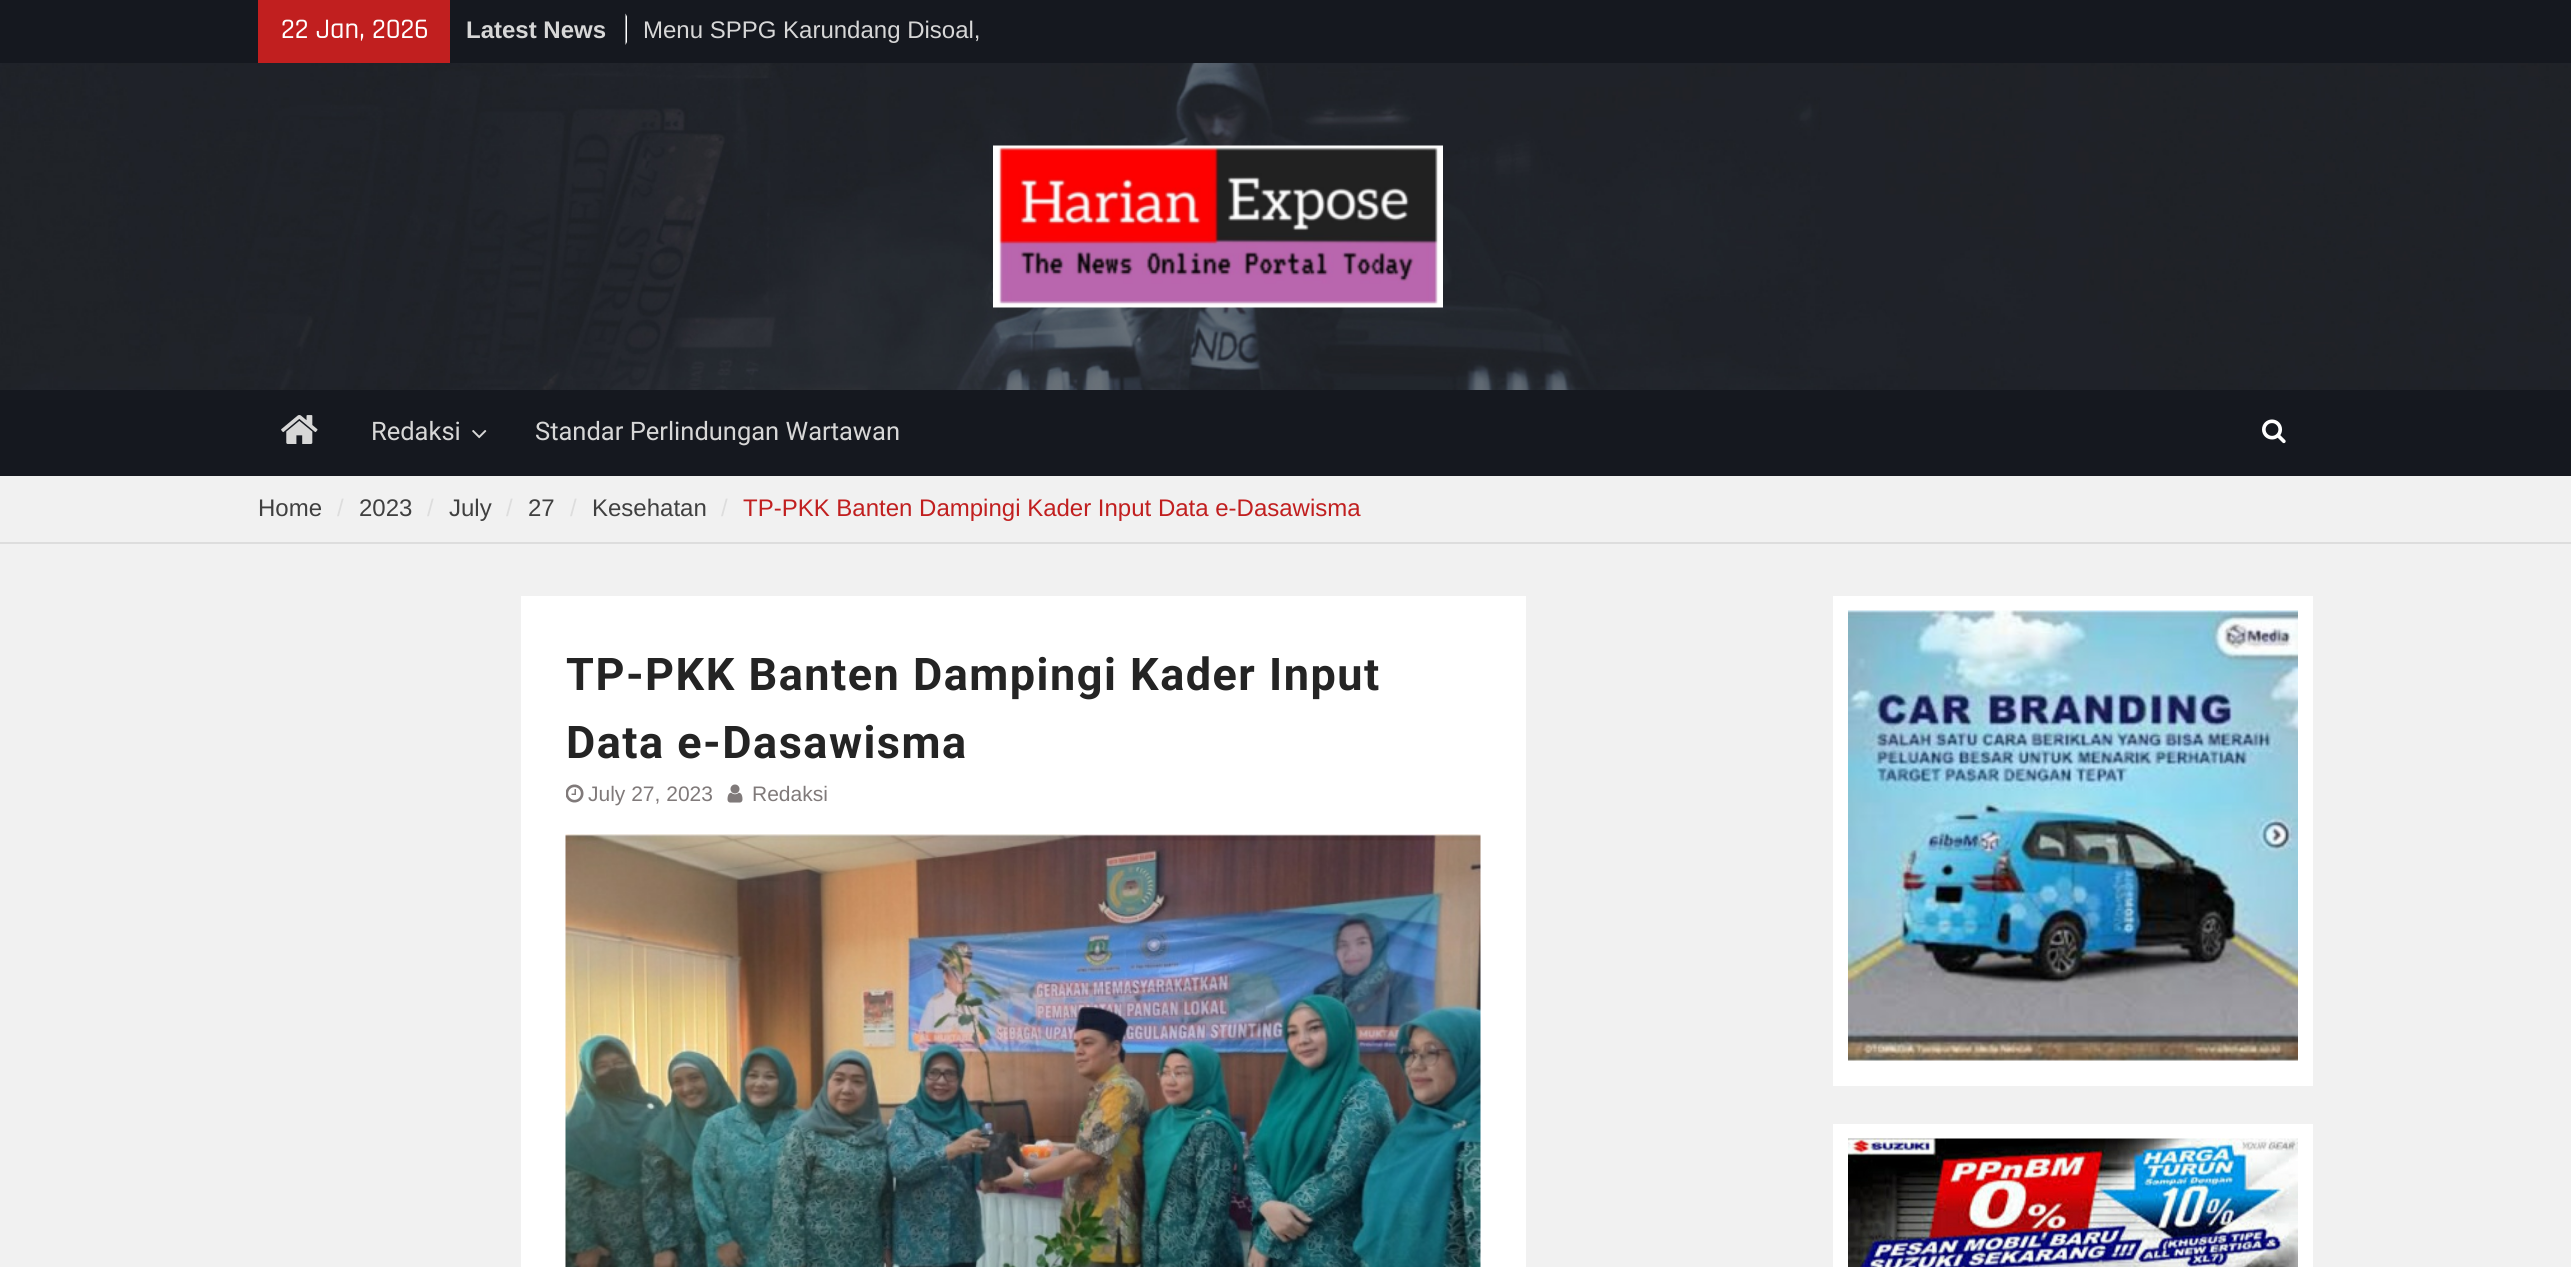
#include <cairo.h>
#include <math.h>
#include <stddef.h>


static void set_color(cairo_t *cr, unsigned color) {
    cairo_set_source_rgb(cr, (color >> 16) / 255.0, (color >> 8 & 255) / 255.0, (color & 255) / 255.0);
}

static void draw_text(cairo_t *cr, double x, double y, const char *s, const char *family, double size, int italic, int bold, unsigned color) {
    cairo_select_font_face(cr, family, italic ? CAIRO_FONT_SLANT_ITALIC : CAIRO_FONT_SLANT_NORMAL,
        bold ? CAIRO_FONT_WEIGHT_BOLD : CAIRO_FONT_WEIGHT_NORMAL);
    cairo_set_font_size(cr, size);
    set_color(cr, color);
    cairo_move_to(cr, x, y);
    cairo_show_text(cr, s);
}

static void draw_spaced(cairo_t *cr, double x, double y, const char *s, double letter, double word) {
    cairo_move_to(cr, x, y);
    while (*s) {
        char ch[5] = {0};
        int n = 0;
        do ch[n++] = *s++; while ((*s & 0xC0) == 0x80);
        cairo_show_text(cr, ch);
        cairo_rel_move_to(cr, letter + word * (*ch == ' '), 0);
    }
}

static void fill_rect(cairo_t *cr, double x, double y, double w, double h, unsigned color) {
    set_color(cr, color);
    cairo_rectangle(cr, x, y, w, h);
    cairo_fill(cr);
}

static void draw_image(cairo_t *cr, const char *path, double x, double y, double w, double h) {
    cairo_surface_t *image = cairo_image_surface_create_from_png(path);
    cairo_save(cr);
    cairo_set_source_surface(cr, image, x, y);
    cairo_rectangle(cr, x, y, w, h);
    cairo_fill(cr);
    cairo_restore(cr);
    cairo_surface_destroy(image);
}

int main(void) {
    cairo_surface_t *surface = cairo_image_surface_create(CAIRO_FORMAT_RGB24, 2571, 1267);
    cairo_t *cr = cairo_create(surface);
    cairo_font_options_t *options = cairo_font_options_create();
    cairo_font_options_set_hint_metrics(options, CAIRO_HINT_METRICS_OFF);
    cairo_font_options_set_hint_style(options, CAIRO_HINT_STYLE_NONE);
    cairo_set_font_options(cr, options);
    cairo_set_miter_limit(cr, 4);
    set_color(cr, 0xF1F1F1);
    cairo_paint(cr);
    fill_rect(cr, 0, 0, 2571, 63, 0x15181F);
    fill_rect(cr, 258, 0, 192, 63, 0xC11F1F);
    draw_text(cr, 281, 38, "22 Jan, 2026", "Rajdhani Medium", 28.5, 0, 0, 0xFFFFFF);
    draw_text(cr, 466, 38, "Latest News", "Liberation Sans", 24, 0, 1, 0xD7D7D7);
    set_color(cr, 0xFFFFFF);
    cairo_new_path(cr);
    cairo_move_to(cr, 625.5, 45);
    cairo_line_to(cr, 625.5, 13.5);
    cairo_line_to(cr, 627, 16.5);
    cairo_line_to(cr, 627, 42);
    cairo_close_path(cr);
    cairo_fill(cr);
    draw_text(cr, 643, 38, "Menu SPPG Karundang Disoal,", "Liberation Sans", 24, 0, 0, 0xD7D7D7);
    draw_image(cr, "assets/img1.png", 0, 63, 2571, 327);
    draw_image(cr, "assets/img2.png", 993, 145, 450, 163);
    fill_rect(cr, 0, 390, 2571, 86, 0x15181F);
    draw_image(cr, "assets/img3.png", 281, 415, 37, 29);
    draw_text(cr, 371, 440, "Redaksi", "Roboto", 25.5, 0, 0, 0xD7D7D7);
    draw_image(cr, "assets/img4.png", 472, 430, 15, 9);
    draw_text(cr, 535, 440, "Standar Perlindungan Wartawan", "Roboto", 25.5, 0, 0, 0xD7D7D7);
    draw_image(cr, "assets/img5.png", 2262, 419, 24, 25);
    fill_rect(cr, 0, 542, 2571, 2, 0xDDDDDD);
    draw_text(cr, 258, 516, "Home", "Liberation Sans", 24, 0, 0, 0x404040);
    draw_text(cr, 337, 516, "/", "Liberation Sans", 24, 0, 0, 0xDDDDDD);
    draw_text(cr, 359, 516, "2023", "Liberation Sans", 24, 0, 0, 0x404040);
    draw_text(cr, 427, 516, "/", "Liberation Sans", 24, 0, 0, 0xDDDDDD);
    draw_text(cr, 449, 516, "July", "Liberation Sans", 24, 0, 0, 0x404040);
    draw_text(cr, 506, 516, "/", "Liberation Sans", 24, 0, 0, 0xDDDDDD);
    draw_text(cr, 528, 516, "27", "Liberation Sans", 24, 0, 0, 0x404040);
    draw_text(cr, 570, 516, "/", "Liberation Sans", 24, 0, 0, 0xDDDDDD);
    draw_text(cr, 592, 516, "Kesehatan", "Liberation Sans", 24, 0, 0, 0x404040);
    draw_text(cr, 721, 516, "/", "Liberation Sans", 24, 0, 0, 0xDDDDDD);
    draw_text(cr, 743, 516, "TP-PKK Banten Dampingi Kader Input Data e-Dasawisma", "Liberation Sans", 24, 0, 0, 0xC11F1F);
    fill_rect(cr, 521, 596, 1005, 671, 0xFFFFFF);
    cairo_select_font_face(cr, "Roboto", CAIRO_FONT_SLANT_NORMAL, CAIRO_FONT_WEIGHT_BOLD);
    cairo_set_font_size(cr, 45);
    set_color(cr, 0x242424);
    draw_spaced(cr, 566, 690, "TP-PKK Banten Dampingi Kader Input", 1.5, 0);
    draw_spaced(cr, 566, 758, "Data e-Dasawisma", 1.5, 0);
    draw_image(cr, "assets/img6.png", 566, 784, 18, 19);
    draw_text(cr, 588, 801, "July 27, 2023", "Liberation Sans", 21, 0, 0, 0x807A7A);
    draw_image(cr, "assets/img7.png", 727, 784, 16, 19);
    draw_text(cr, 752, 801, "Redaksi", "Liberation Sans", 21, 0, 0, 0x807A7A);
    draw_image(cr, "assets/img8.png", 565, 834, 916, 433);
    fill_rect(cr, 1833, 596, 480, 490, 0xFFFFFF);
    draw_image(cr, "assets/img9.png", 1848, 610, 450, 451);
    fill_rect(cr, 1833, 1124, 480, 143, 0xFFFFFF);
    draw_image(cr, "assets/img10.png", 1848, 1138, 450, 129);
    cairo_surface_write_to_png(surface, "output.png");
    cairo_font_options_destroy(options);
    cairo_destroy(cr);
    cairo_surface_destroy(surface);
    return 0;
}
